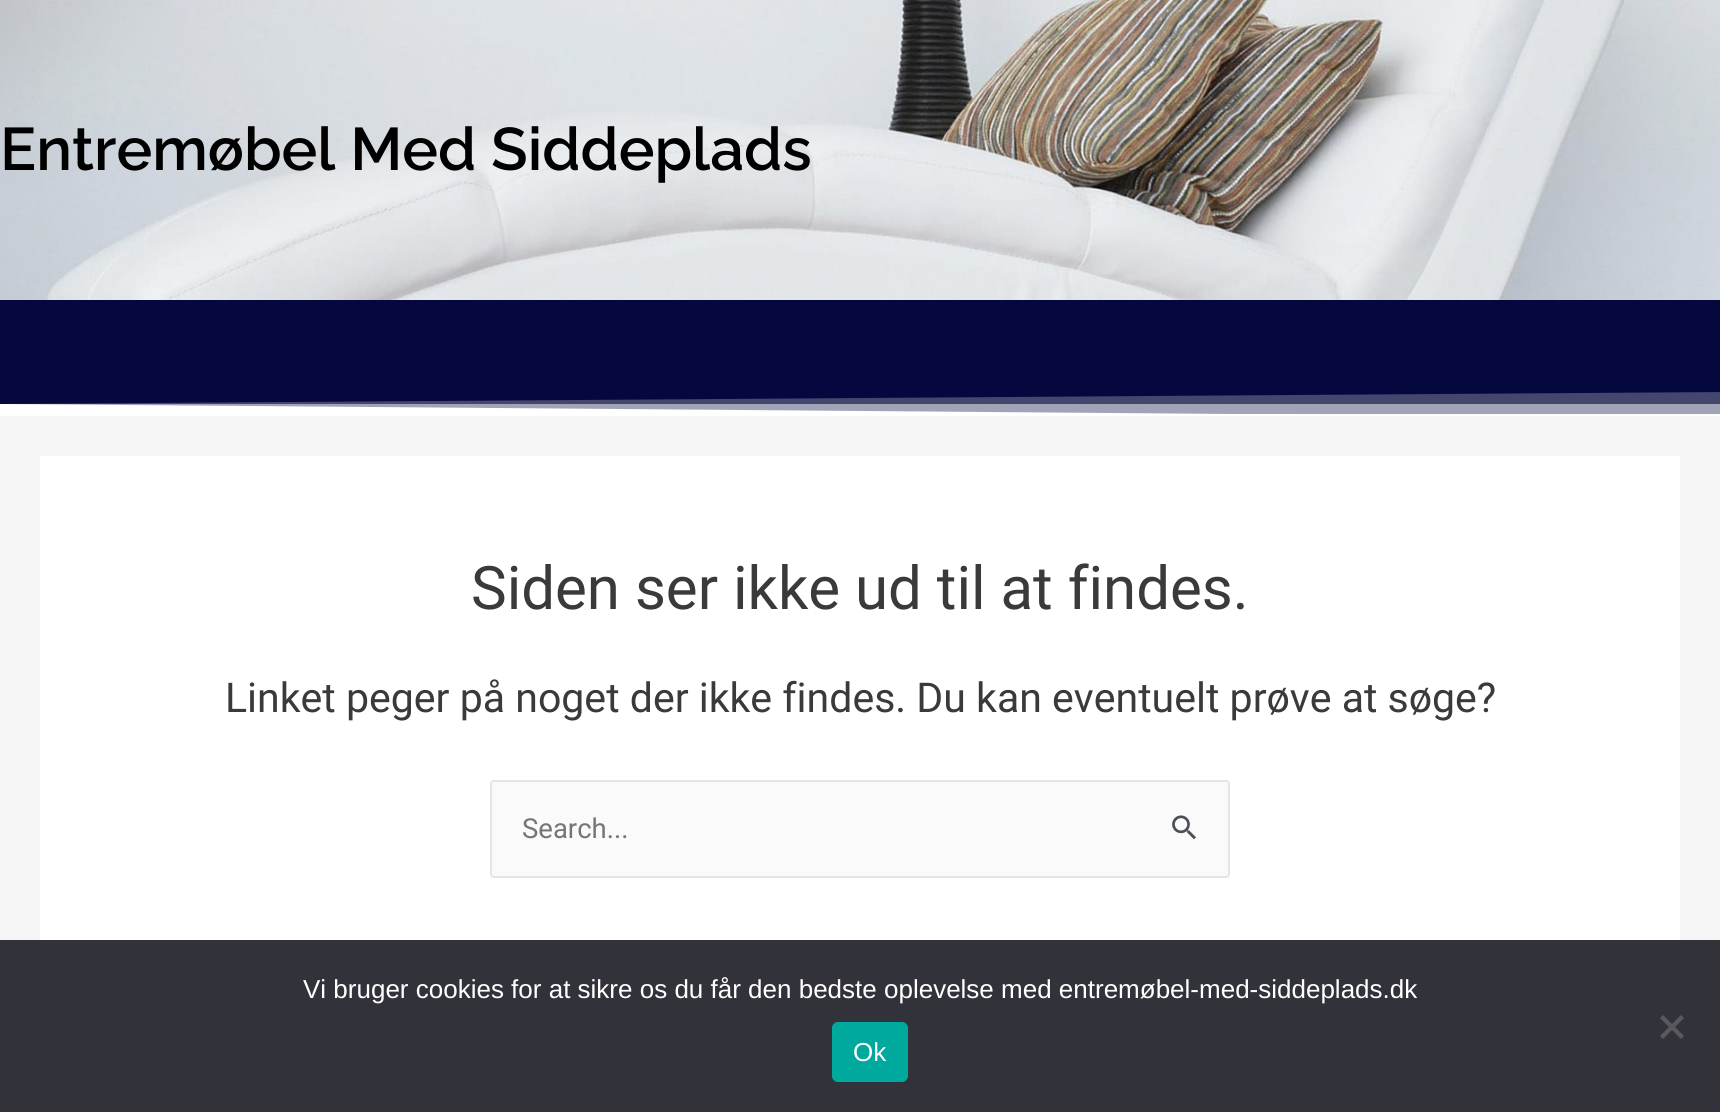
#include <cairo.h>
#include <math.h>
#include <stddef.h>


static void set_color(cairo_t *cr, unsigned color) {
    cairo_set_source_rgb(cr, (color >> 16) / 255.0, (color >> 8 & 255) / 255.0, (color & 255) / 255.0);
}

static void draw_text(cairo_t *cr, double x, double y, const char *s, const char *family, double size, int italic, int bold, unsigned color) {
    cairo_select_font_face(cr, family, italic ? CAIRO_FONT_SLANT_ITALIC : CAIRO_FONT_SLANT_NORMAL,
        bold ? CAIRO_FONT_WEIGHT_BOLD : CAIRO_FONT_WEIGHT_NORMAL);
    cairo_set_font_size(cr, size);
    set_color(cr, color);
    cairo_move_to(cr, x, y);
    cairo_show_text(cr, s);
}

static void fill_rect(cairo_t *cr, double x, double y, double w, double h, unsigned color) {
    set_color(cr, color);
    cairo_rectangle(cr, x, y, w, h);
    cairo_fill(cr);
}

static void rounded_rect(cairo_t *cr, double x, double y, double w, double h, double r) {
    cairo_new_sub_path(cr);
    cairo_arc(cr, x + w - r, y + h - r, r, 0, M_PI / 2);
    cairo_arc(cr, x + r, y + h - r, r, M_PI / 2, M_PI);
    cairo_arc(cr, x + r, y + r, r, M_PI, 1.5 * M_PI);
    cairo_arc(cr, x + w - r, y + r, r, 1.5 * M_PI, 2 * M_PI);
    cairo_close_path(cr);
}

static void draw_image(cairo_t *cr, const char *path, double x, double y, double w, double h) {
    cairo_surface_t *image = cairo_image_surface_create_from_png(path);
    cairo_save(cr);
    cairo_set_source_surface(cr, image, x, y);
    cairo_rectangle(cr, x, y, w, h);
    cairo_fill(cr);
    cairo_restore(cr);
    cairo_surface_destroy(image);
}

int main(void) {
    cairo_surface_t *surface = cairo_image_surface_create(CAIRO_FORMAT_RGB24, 1720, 1112);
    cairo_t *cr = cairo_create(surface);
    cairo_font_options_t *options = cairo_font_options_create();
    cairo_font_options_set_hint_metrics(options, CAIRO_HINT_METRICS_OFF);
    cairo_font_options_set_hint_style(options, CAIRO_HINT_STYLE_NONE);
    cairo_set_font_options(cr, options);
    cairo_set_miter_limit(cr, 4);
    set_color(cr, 0xF5F5F5);
    cairo_paint(cr);
    fill_rect(cr, 1237, 414, 483, 2, 0xFAFAFA);
    draw_image(cr, "assets/img1.png", 0, 0, 1720, 300);
    draw_text(cr, 0, 170, "Entremøbel Med Siddeplads", "Raleway SemiBold", 60, 0, 0, 0x000000);
    fill_rect(cr, 0, 300, 1720, 104, 0x05083E);
    fill_rect(cr, 7, 404, 1713, 10, 0x82849F);
    cairo_save(cr);
    cairo_rectangle(cr, 0, 390, 1720, 26);
    cairo_clip(cr);
    set_color(cr, 0xFFFFFF);
    cairo_new_path(cr);
    cairo_move_to(cr, 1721, 418);
    cairo_line_to(cr, -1, 418);
    cairo_line_to(cr, -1, 404);
    cairo_close_path(cr);
    cairo_fill(cr);
    cairo_set_source_rgba(cr, 1, 1, 1, 0.25);
    cairo_new_path(cr);
    cairo_move_to(cr, -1, 418);
    cairo_line_to(cr, 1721, 418);
    cairo_line_to(cr, 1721, 392);
    cairo_line_to(cr, -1, 404);
    cairo_close_path(cr);
    cairo_fill(cr);
    cairo_restore(cr);
    fill_rect(cr, 40, 456, 1640, 484, 0xFFFFFF);
    draw_text(cr, 471, 609, "Siden ser ikke ud til at findes.", "Roboto", 60, 0, 0, 0x3A3A3A);
    draw_text(cr, 225, 712, "Linket peger på noget der ikke findes. Du kan eventuelt prøve at søge?", "Roboto", 41.05, 0, 0, 0x3A3A3A);
    set_color(cr, 0xFAFAFA);
    rounded_rect(cr, 491, 781, 738, 96, 3);
    cairo_fill_preserve(cr);
    set_color(cr, 0xE5E5E5);
    cairo_stroke(cr);
    draw_text(cr, 522, 838, "Search...", "Roboto", 27.5, 0, 0, 0x757575);
    draw_image(cr, "assets/img2.png", 1172, 815, 24, 25);
    fill_rect(cr, 0, 940, 1720, 172, 0x32323A);
    draw_text(cr, 303, 998, "Vi bruger cookies for at sikre os du får den bedste oplevelse med entremøbel-med-siddeplads.dk", "Liberation Sans", 26, 0, 0, 0xFFFFFF);
    set_color(cr, 0x59595D);
    cairo_new_path(cr);
    cairo_move_to(cr, 1681, 1015);
    cairo_line_to(cr, 1684, 1018);
    cairo_line_to(cr, 1663, 1039);
    cairo_line_to(cr, 1660, 1036);
    cairo_close_path(cr);
    cairo_fill(cr);
    cairo_new_path(cr);
    cairo_move_to(cr, 1660, 1018);
    cairo_line_to(cr, 1663, 1015);
    cairo_line_to(cr, 1684, 1036);
    cairo_line_to(cr, 1681, 1039);
    cairo_close_path(cr);
    cairo_fill(cr);
    set_color(cr, 0x00A99D);
    rounded_rect(cr, 832, 1022, 76, 60, 6);
    cairo_fill(cr);
    draw_text(cr, 853, 1061, "Ok", "Liberation Sans", 26, 0, 0, 0xFFFFFF);
    cairo_surface_write_to_png(surface, "output.png");
    cairo_font_options_destroy(options);
    cairo_destroy(cr);
    cairo_surface_destroy(surface);
    return 0;
}
